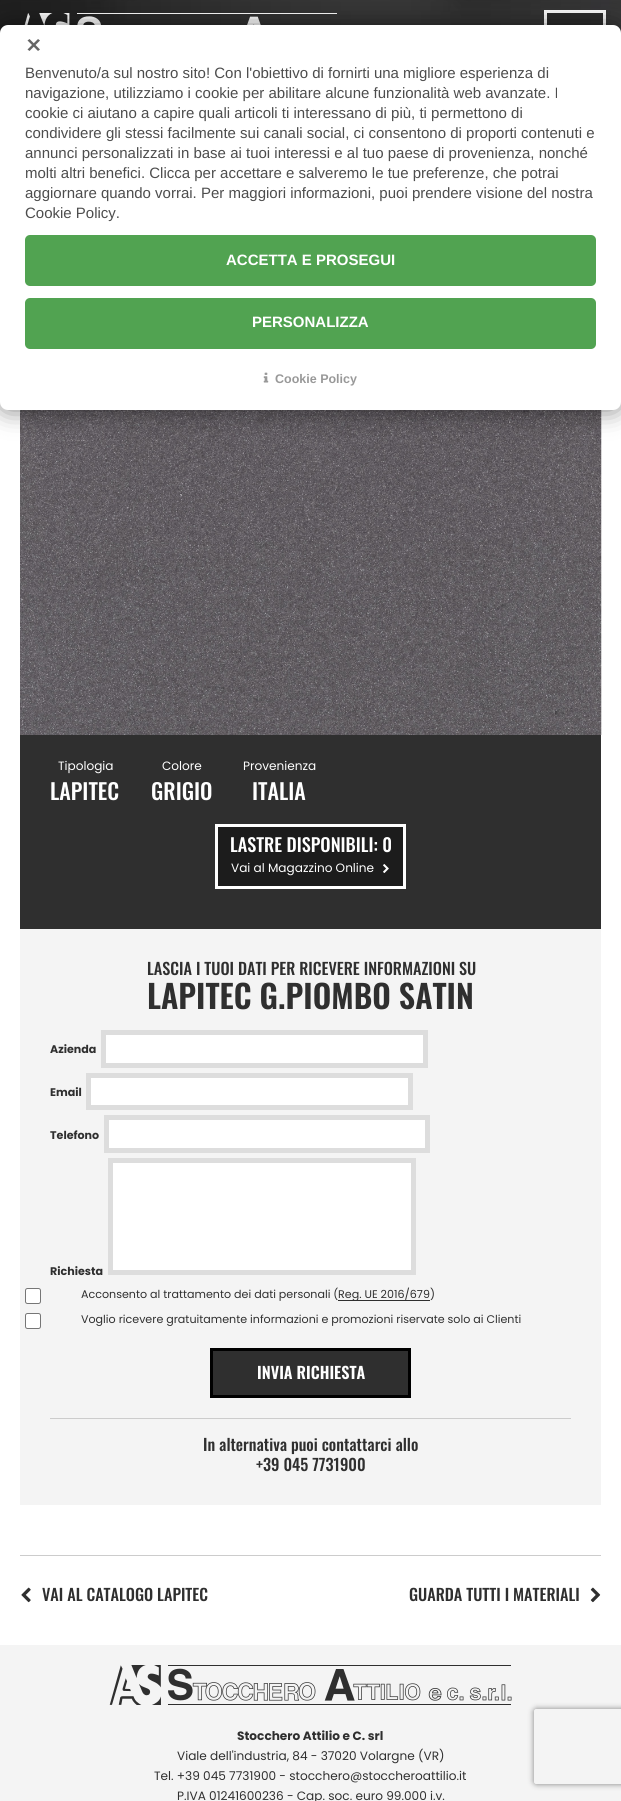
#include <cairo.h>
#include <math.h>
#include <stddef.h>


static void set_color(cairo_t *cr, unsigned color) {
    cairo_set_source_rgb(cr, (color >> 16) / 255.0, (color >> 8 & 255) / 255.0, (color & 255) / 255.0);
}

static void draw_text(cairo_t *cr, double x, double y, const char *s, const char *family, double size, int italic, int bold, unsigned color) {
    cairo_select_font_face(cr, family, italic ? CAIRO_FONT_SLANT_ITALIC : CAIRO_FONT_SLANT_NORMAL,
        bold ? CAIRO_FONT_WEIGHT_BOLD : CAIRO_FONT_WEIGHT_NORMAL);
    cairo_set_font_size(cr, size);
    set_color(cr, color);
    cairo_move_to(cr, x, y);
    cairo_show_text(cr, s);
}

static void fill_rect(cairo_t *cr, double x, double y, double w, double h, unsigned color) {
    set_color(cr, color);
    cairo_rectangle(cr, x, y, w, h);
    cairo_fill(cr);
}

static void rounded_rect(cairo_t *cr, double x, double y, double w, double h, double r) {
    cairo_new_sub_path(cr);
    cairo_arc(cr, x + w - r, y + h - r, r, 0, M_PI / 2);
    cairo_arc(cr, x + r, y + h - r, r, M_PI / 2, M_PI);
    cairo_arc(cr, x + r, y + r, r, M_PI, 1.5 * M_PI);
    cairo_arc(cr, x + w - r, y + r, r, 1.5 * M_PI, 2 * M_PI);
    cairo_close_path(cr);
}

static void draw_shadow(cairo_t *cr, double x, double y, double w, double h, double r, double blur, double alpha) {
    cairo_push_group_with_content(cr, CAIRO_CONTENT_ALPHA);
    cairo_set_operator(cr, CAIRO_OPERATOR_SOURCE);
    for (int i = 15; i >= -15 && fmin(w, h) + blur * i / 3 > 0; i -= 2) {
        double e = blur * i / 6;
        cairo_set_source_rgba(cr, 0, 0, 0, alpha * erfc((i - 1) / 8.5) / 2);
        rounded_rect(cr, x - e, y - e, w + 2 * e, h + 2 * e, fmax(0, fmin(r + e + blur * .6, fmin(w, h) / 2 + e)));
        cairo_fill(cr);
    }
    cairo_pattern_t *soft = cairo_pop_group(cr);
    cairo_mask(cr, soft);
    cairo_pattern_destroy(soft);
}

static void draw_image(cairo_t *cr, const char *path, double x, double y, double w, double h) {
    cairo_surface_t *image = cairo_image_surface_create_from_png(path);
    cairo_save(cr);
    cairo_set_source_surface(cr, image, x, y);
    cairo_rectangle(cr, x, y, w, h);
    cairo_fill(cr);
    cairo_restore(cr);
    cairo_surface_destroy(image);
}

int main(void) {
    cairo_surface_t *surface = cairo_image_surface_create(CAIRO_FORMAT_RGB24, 621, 1801);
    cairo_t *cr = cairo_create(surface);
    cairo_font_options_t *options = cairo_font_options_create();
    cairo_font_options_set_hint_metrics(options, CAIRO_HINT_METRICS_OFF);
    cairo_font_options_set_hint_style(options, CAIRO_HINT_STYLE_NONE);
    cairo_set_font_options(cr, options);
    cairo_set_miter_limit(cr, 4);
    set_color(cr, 0xFFFFFF);
    cairo_paint(cr);
    draw_image(cr, "assets/img2.png", 0, 0, 621, 33);
    draw_image(cr, "assets/img3.png", 24, 13, 313, 12);
    cairo_set_source_rgba(cr, 0, 0, 0, 0.2);
    cairo_rectangle(cr, 547, 13, 56, 12);
    cairo_fill(cr);
    cairo_rectangle(cr, 545.5, 11.5, 59, 42);
    set_color(cr, 0xFFFFFF);
    cairo_set_line_width(cr, 3);
    cairo_stroke(cr);
    draw_image(cr, "assets/img4.png", 20, 410, 582, 325);
    set_color(cr, 0x000000);
    draw_shadow(cr, 0, 25, 621, 385, 8, 12.5, 0.5);
    set_color(cr, 0xFFFFFF);
    rounded_rect(cr, 0, 25, 621, 385, 8);
    cairo_fill(cr);
    set_color(cr, 0x666666);
    cairo_new_path(cr);
    cairo_move_to(cr, 38, 39);
    cairo_line_to(cr, 40, 40.5);
    cairo_line_to(cr, 29.5, 51);
    cairo_line_to(cr, 27.5, 49.5);
    cairo_close_path(cr);
    cairo_fill(cr);
    cairo_new_path(cr);
    cairo_move_to(cr, 27.5, 40.5);
    cairo_line_to(cr, 29.5, 39);
    cairo_line_to(cr, 40, 49.5);
    cairo_line_to(cr, 38, 51);
    cairo_close_path(cr);
    cairo_fill(cr);
    draw_text(cr, 25, 78, "Benvenuto/a sul nostro sito! Con l'obiettivo di fornirti una migliore esperienza di", "Liberation Sans", 15, 0, 0, 0x4D4D4D);
    draw_text(cr, 25, 98, "navigazione, utilizziamo i cookie per abilitare alcune funzionalità web avanzate. I", "Liberation Sans", 15, 0, 0, 0x4D4D4D);
    draw_text(cr, 25, 118, "cookie ci aiutano a capire quali articoli ti interessano di più, ti permettono di", "Liberation Sans", 15, 0, 0, 0x4D4D4D);
    draw_text(cr, 25, 138, "condividere gli stessi facilmente sui canali social, ci consentono di proporti contenuti e", "Liberation Sans", 15, 0, 0, 0x4D4D4D);
    draw_text(cr, 25, 158, "annunci personalizzati in base ai tuoi interessi e al tuo paese di provenienza, nonché", "Liberation Sans", 15, 0, 0, 0x4D4D4D);
    draw_text(cr, 25, 178, "molti altri benefici. Clicca per accettare e salveremo le tue preferenze, che potrai", "Liberation Sans", 15, 0, 0, 0x4D4D4D);
    draw_text(cr, 25, 198, "aggiornare quando vorrai. Per maggiori informazioni, puoi prendere visione del nostra", "Liberation Sans", 15, 0, 0, 0x4D4D4D);
    draw_text(cr, 25, 218, "Cookie Policy.", "Liberation Sans", 15, 0, 0, 0x4D4D4D);
    set_color(cr, 0x51A351);
    rounded_rect(cr, 25, 235, 571, 51, 5);
    cairo_fill(cr);
    draw_text(cr, 226, 265, "ACCETTA E PROSEGUI", "Liberation Sans", 15, 0, 1, 0xFFFFFF);
    set_color(cr, 0x51A351);
    rounded_rect(cr, 25, 298, 571, 51, 5);
    cairo_fill(cr);
    draw_text(cr, 252, 327, "PERSONALIZZA", "Liberation Sans", 15, 0, 1, 0xFFFFFF);
    draw_image(cr, "assets/img1.png", 263, 372, 6, 11);
    draw_text(cr, 275, 383, "Cookie Policy", "Liberation Sans", 12.5, 0, 1, 0x999999);
    fill_rect(cr, 20, 929, 581, 576, 0xF4F4F4);
    fill_rect(cr, 20, 735, 581, 194, 0x2F2F2F);
    draw_text(cr, 58, 770, "Tipologia", "Poppins", 12.1, 0, 0, 0xFFFFFF);
    draw_text(cr, 50, 800, "LAPITEC", "Oswald Medium", 22, 0, 0, 0xFFFFFF);
    draw_text(cr, 162, 770, "Colore", "Poppins", 12.1, 0, 0, 0xFFFFFF);
    draw_text(cr, 151, 800, "GRIGIO", "Oswald Medium", 22, 0, 0, 0xFFFFFF);
    draw_text(cr, 243, 770, "Provenienza", "Poppins", 12.1, 0, 0, 0xFFFFFF);
    draw_text(cr, 252, 800, "ITALIA", "Oswald Medium", 22, 0, 0, 0xFFFFFF);
    set_color(cr, 0x1C1C1C);
    cairo_rectangle(cr, 216.5, 825.5, 188, 62);
    cairo_fill_preserve(cr);
    set_color(cr, 0xFFFFFF);
    cairo_stroke(cr);
    draw_text(cr, 230, 852, "LASTRE DISPONIBILI: 0", "Oswald Medium", 18.25, 0, 0, 0xFFFFFF);
    draw_text(cr, 231, 872, "Vai al Magazzino Online", "Poppins", 12.1, 0, 0, 0xFFFFFF);
    draw_image(cr, "assets/img5.png", 383, 864, 6, 9);
    draw_text(cr, 147, 975, "LASCIA I TUOI DATI PER RICEVERE INFORMAZIONI SU", "Oswald Medium", 16.2, 0, 0, 0x2F2F2F);
    draw_text(cr, 147, 1009, "LAPITEC G.PIOMBO SATIN", "Oswald SemiBold", 32.25, 0, 0, 0x2F2F2F);
    draw_text(cr, 50, 1053, "Azienda", "Poppins", 11.1, 0, 1, 0x2F2F2F);
    set_color(cr, 0xFFFFFF);
    cairo_rectangle(cr, 103.5, 1032.5, 322, 33);
    cairo_fill_preserve(cr);
    set_color(cr, 0xDDDDDD);
    cairo_set_line_width(cr, 5);
    cairo_stroke(cr);
    draw_text(cr, 50, 1096, "Email", "Poppins", 11.1, 0, 1, 0x2F2F2F);
    set_color(cr, 0xFFFFFF);
    cairo_rectangle(cr, 88.5, 1075.5, 322, 32);
    cairo_fill_preserve(cr);
    set_color(cr, 0xDDDDDD);
    cairo_stroke(cr);
    draw_text(cr, 50, 1139, "Telefono", "Poppins", 11.1, 0, 1, 0x2F2F2F);
    set_color(cr, 0xFFFFFF);
    cairo_rectangle(cr, 106.5, 1117.5, 321, 33);
    cairo_fill_preserve(cr);
    set_color(cr, 0xDDDDDD);
    cairo_stroke(cr);
    draw_text(cr, 50, 1275, "Richiesta", "Poppins", 11.1, 0, 1, 0x2F2F2F);
    set_color(cr, 0xFFFFFF);
    cairo_rectangle(cr, 110.5, 1160.5, 303, 112);
    cairo_fill_preserve(cr);
    set_color(cr, 0xDDDDDD);
    cairo_stroke(cr);
    set_color(cr, 0xFFFFFF);
    rounded_rect(cr, 25.5, 1288.5, 15, 15, 2);
    cairo_fill_preserve(cr);
    set_color(cr, 0x767676);
    cairo_set_line_width(cr, 1);
    cairo_stroke(cr);
    draw_text(cr, 81, 1298, "Acconsento al trattamento dei dati personali (", "Poppins", 11.1, 0, 0, 0x2F2F2F);
    fill_rect(cr, 338, 1300, 92, 1, 0x2F2F2F);
    draw_text(cr, 338, 1298, "Reg. UE 2016/679)", "Poppins", 11.1, 0, 0, 0x2F2F2F);
    set_color(cr, 0xFFFFFF);
    rounded_rect(cr, 25.5, 1313.5, 15, 15, 2);
    cairo_fill_preserve(cr);
    set_color(cr, 0x767676);
    cairo_stroke(cr);
    draw_text(cr, 81, 1323, "Voglio ricevere gratuitamente informazioni e promozioni riservate solo ai Clienti", "Poppins", 11.1, 0, 0, 0x2F2F2F);
    cairo_rectangle(cr, 211.5, 1349.5, 198, 47);
    cairo_fill_preserve(cr);
    set_color(cr, 0x000000);
    cairo_set_line_width(cr, 3);
    cairo_stroke(cr);
    draw_text(cr, 257, 1379, "INVIA RICHIESTA", "Oswald SemiBold", 16.2, 0, 0, 0xFFFFFF);
    fill_rect(cr, 50, 1418, 521, 1, 0xCCCCCC);
    draw_text(cr, 203, 1451, "In alternativa puoi contattarci allo", "Oswald Medium", 16.2, 0, 0, 0x2F2F2F);
    draw_text(cr, 256, 1471, "+39 045 7731900", "Oswald Medium", 16.2, 0, 0, 0x2F2F2F);
    fill_rect(cr, 20, 1555, 581, 1, 0xCCCCCC);
    draw_image(cr, "assets/img6.png", 21, 1587, 10, 16);
    draw_text(cr, 42, 1601, "VAI AL CATALOGO LAPITEC", "Oswald Medium", 16.2, 0, 0, 0x2F2F2F);
    draw_text(cr, 409, 1601, "GUARDA TUTTI I MATERIALI", "Oswald Medium", 16.2, 0, 0, 0x2F2F2F);
    draw_image(cr, "assets/img7.png", 590, 1587, 11, 16);
    fill_rect(cr, 0, 1645, 621, 156, 0xF4F4F4);
    draw_image(cr, "assets/img8.png", 109, 1665, 403, 40);
    draw_text(cr, 237, 1740, "Stocchero Attilio e C. srl", "Poppins", 12.1, 0, 1, 0x2F2F2F);
    draw_text(cr, 177, 1760, "Viale dell'industria, 84 - 37020 Volargne (VR)", "Poppins", 12.1, 0, 0, 0x2F2F2F);
    draw_text(cr, 154, 1780, "Tel. +39 045 7731900 - stocchero@stoccheroattilio.it", "Poppins", 12.1, 0, 0, 0x2F2F2F);
    draw_text(cr, 177, 1800, "P.IVA 01241600236 - Cap. soc. euro 99.000 i.v.", "Poppins", 12.1, 0, 0, 0x2F2F2F);
    cairo_save(cr);
    cairo_set_fill_rule(cr, CAIRO_FILL_RULE_EVEN_ODD);
    cairo_new_path(cr);
    cairo_move_to(cr, 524, 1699);
    cairo_line_to(cr, 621, 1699);
    cairo_line_to(cr, 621, 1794);
    cairo_line_to(cr, 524, 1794);
    cairo_close_path(cr);
    cairo_move_to(cr, 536.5, 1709);
    cairo_line_to(cr, 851.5, 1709);
    cairo_curve_to(cr, 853, 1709, 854, 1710, 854, 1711.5);
    cairo_line_to(cr, 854, 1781.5);
    cairo_curve_to(cr, 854, 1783, 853, 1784, 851.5, 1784);
    cairo_line_to(cr, 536.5, 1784);
    cairo_curve_to(cr, 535, 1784, 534, 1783, 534, 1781.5);
    cairo_line_to(cr, 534, 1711.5);
    cairo_curve_to(cr, 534, 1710, 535, 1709, 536.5, 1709);
    cairo_close_path(cr);
    cairo_clip(cr);
    set_color(cr, 0x808080);
    draw_shadow(cr, 534, 1709, 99, 75, 2.5, 3, 1);
    cairo_restore(cr);
    cairo_surface_write_to_png(surface, "output.png");
    cairo_font_options_destroy(options);
    cairo_destroy(cr);
    cairo_surface_destroy(surface);
    return 0;
}
